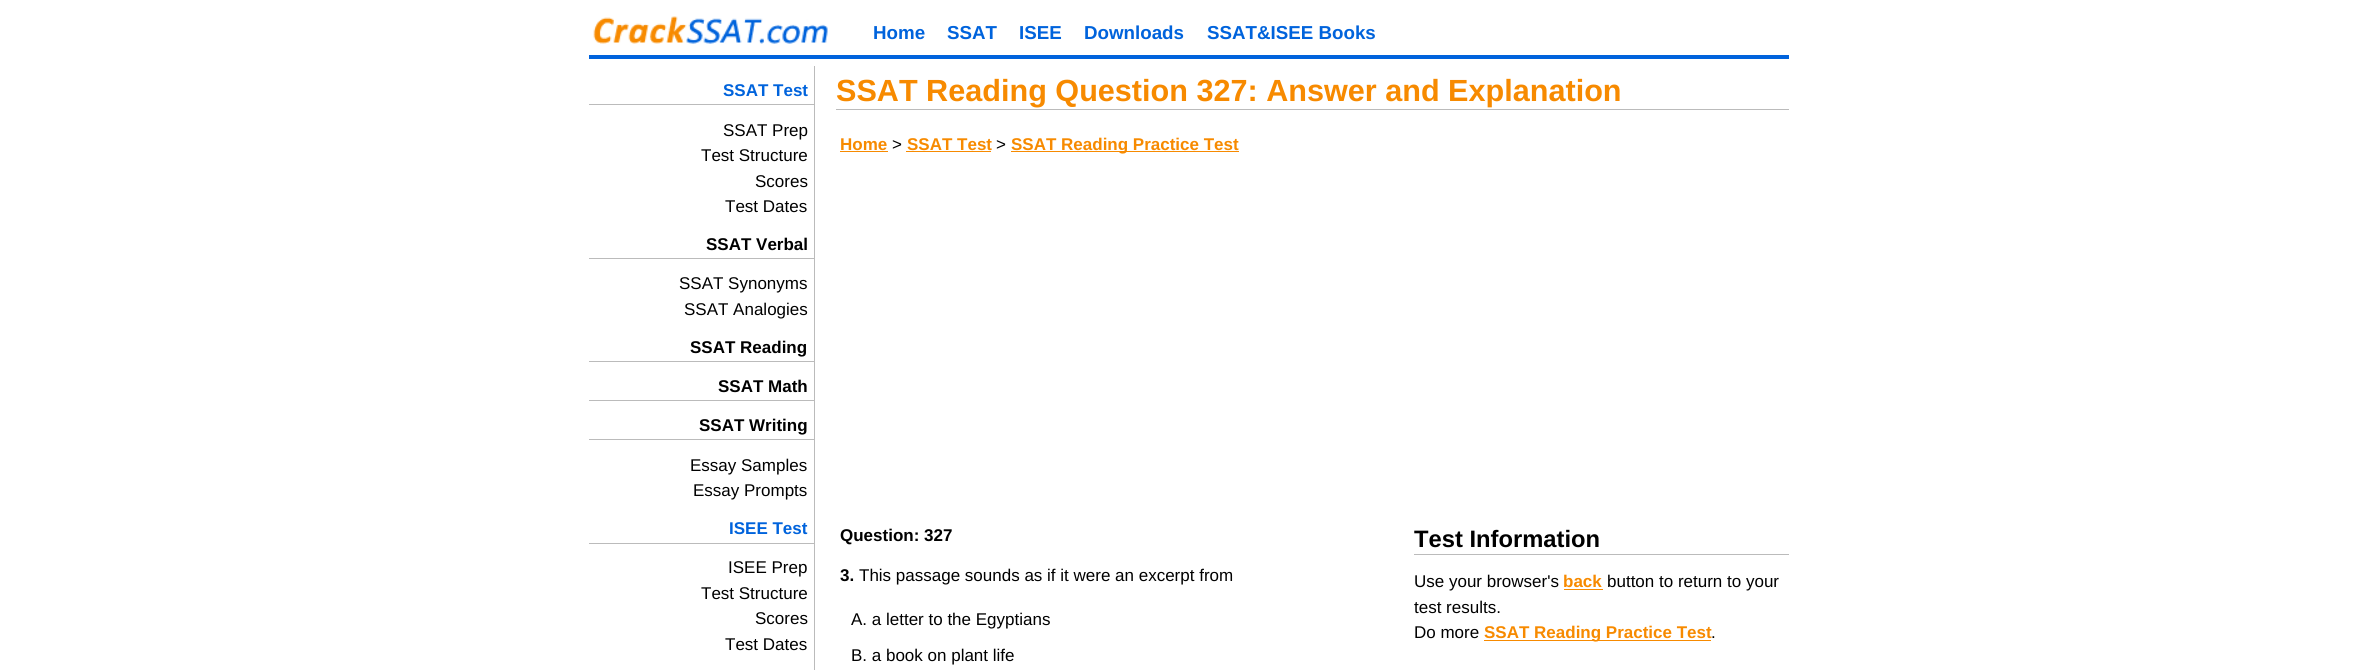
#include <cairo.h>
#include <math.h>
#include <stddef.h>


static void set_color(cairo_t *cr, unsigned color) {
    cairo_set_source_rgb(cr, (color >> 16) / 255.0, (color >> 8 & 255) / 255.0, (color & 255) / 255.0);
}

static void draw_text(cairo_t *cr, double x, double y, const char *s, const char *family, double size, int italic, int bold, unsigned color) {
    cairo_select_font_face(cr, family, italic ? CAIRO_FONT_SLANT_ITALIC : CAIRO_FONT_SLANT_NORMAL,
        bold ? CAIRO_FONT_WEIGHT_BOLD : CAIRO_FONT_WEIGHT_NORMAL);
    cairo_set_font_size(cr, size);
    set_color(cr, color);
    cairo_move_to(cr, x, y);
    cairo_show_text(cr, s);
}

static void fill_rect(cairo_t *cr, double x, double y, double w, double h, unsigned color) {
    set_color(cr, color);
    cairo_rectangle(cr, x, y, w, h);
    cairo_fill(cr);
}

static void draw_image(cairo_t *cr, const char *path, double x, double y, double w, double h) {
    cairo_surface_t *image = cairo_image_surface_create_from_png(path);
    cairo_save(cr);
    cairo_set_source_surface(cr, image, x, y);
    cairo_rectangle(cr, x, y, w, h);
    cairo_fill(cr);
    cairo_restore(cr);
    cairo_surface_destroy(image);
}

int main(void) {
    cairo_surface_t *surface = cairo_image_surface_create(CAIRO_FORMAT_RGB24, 2377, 670);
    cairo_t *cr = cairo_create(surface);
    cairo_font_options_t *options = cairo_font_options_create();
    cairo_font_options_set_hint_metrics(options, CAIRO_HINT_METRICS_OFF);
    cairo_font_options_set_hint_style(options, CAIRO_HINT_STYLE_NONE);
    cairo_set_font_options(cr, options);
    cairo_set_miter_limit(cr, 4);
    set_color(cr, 0xFFFFFF);
    cairo_paint(cr);
    fill_rect(cr, 589, 55, 1200, 4, 0x0063DC);
    draw_image(cr, "assets/img1.png", 593, 16, 235, 28);
    draw_text(cr, 873, 39, "Home", "Liberation Sans", 18.75, 0, 1, 0x0063DC);
    draw_text(cr, 947, 39, "SSAT", "Liberation Sans", 18.75, 0, 1, 0x0063DC);
    draw_text(cr, 1019, 39, "ISEE", "Liberation Sans", 18.75, 0, 1, 0x0063DC);
    draw_text(cr, 1084, 39, "Downloads", "Liberation Sans", 18.75, 0, 1, 0x0063DC);
    draw_text(cr, 1207, 39, "SSAT&ISEE Books", "Liberation Sans", 18.75, 0, 1, 0x0063DC);
    fill_rect(cr, 814, 66, 1, 604, 0xBBBBBB);
    fill_rect(cr, 589, 104, 225, 1, 0xBBBBBB);
    draw_text(cr, 723, 96, "SSAT Test", "Liberation Sans", 17, 0, 1, 0x0063DC);
    draw_text(cr, 723, 136, "SSAT Prep", "Liberation Sans", 17, 0, 0, 0x000000);
    draw_text(cr, 701, 161, "Test Structure", "Liberation Sans", 17, 0, 0, 0x000000);
    draw_text(cr, 755, 187, "Scores", "Liberation Sans", 17, 0, 0, 0x000000);
    draw_text(cr, 725, 212, "Test Dates", "Liberation Sans", 17, 0, 0, 0x000000);
    fill_rect(cr, 589, 258, 225, 1, 0xBBBBBB);
    draw_text(cr, 706, 250, "SSAT Verbal", "Liberation Sans", 17, 0, 1, 0x000000);
    draw_text(cr, 679, 289, "SSAT Synonyms", "Liberation Sans", 17, 0, 0, 0x000000);
    draw_text(cr, 684, 315, "SSAT Analogies", "Liberation Sans", 17, 0, 0, 0x000000);
    fill_rect(cr, 589, 361, 225, 1, 0xBBBBBB);
    draw_text(cr, 690, 353, "SSAT Reading", "Liberation Sans", 17, 0, 1, 0x000000);
    fill_rect(cr, 589, 400, 225, 1, 0xBBBBBB);
    draw_text(cr, 718, 392, "SSAT Math", "Liberation Sans", 17, 0, 1, 0x000000);
    fill_rect(cr, 589, 439, 225, 1, 0xBBBBBB);
    draw_text(cr, 699, 431, "SSAT Writing", "Liberation Sans", 17, 0, 1, 0x000000);
    draw_text(cr, 690, 471, "Essay Samples", "Liberation Sans", 17, 0, 0, 0x000000);
    draw_text(cr, 693, 496, "Essay Prompts", "Liberation Sans", 17, 0, 0, 0x000000);
    fill_rect(cr, 589, 543, 225, 1, 0xBBBBBB);
    draw_text(cr, 729, 534, "ISEE Test", "Liberation Sans", 17, 0, 1, 0x0063DC);
    draw_text(cr, 728, 573, "ISEE Prep", "Liberation Sans", 17, 0, 0, 0x000000);
    draw_text(cr, 701, 599, "Test Structure", "Liberation Sans", 17, 0, 0, 0x000000);
    draw_text(cr, 755, 624, "Scores", "Liberation Sans", 17, 0, 0, 0x000000);
    draw_text(cr, 725, 650, "Test Dates", "Liberation Sans", 17, 0, 0, 0x000000);
    fill_rect(cr, 836, 109, 953, 1, 0xBBBBBB);
    draw_text(cr, 836, 101, "SSAT Reading Question 327: Answer and Explanation", "Liberation Sans", 30.6, 0, 1, 0xF78A00);
    draw_text(cr, 840, 150, "Home", "Liberation Sans", 17, 0, 1, 0xF78A00);
    fill_rect(cr, 840, 151, 48, 1, 0xF78A00);
    draw_text(cr, 892, 150, ">", "Liberation Sans", 17, 0, 0, 0x000000);
    draw_text(cr, 907, 150, "SSAT Test", "Liberation Sans", 17, 0, 1, 0xF78A00);
    fill_rect(cr, 906, 151, 85, 1, 0xF78A00);
    draw_text(cr, 996, 150, ">", "Liberation Sans", 17, 0, 0, 0x000000);
    fill_rect(cr, 1011, 151, 228, 1, 0xF78A00);
    draw_text(cr, 1011, 150, "SSAT Reading Practice Test", "Liberation Sans", 17, 0, 1, 0xF78A00);
    draw_text(cr, 840, 541, "Question: 327", "Liberation Sans", 17, 0, 1, 0x000000);
    draw_text(cr, 840, 581, "3.", "Liberation Sans", 17, 0, 1, 0x000000);
    draw_text(cr, 859, 581, "This passage sounds as if it were an excerpt from", "Liberation Sans", 17, 0, 0, 0x000000);
    draw_text(cr, 851, 625, "A. a letter to the Egyptians", "Liberation Sans", 17, 0, 0, 0x000000);
    draw_text(cr, 851, 661, "B. a book on plant life", "Liberation Sans", 17, 0, 0, 0x000000);
    fill_rect(cr, 1414, 554, 375, 1, 0xBBBBBB);
    draw_text(cr, 1414, 547, "Test Information", "Liberation Sans", 23.75, 0, 1, 0x000000);
    draw_text(cr, 1414, 587, "Use your browser's", "Liberation Sans", 17, 0, 0, 0x000000);
    draw_text(cr, 1563, 587, "back", "Liberation Sans", 17, 0, 1, 0xF78A00);
    fill_rect(cr, 1564, 589, 39, 1, 0xF78A00);
    draw_text(cr, 1607, 587, "button to return to your", "Liberation Sans", 17, 0, 0, 0x000000);
    draw_text(cr, 1414, 613, "test results.", "Liberation Sans", 17, 0, 0, 0x000000);
    draw_text(cr, 1414, 638, "Do more", "Liberation Sans", 17, 0, 0, 0x000000);
    fill_rect(cr, 1484, 640, 227, 1, 0xF78A00);
    draw_text(cr, 1484, 638, "SSAT Reading Practice Test", "Liberation Sans", 17, 0, 1, 0xF78A00);
    draw_text(cr, 1711, 638, ".", "Liberation Sans", 17, 0, 0, 0x000000);
    cairo_surface_write_to_png(surface, "output.png");
    cairo_font_options_destroy(options);
    cairo_destroy(cr);
    cairo_surface_destroy(surface);
    return 0;
}
